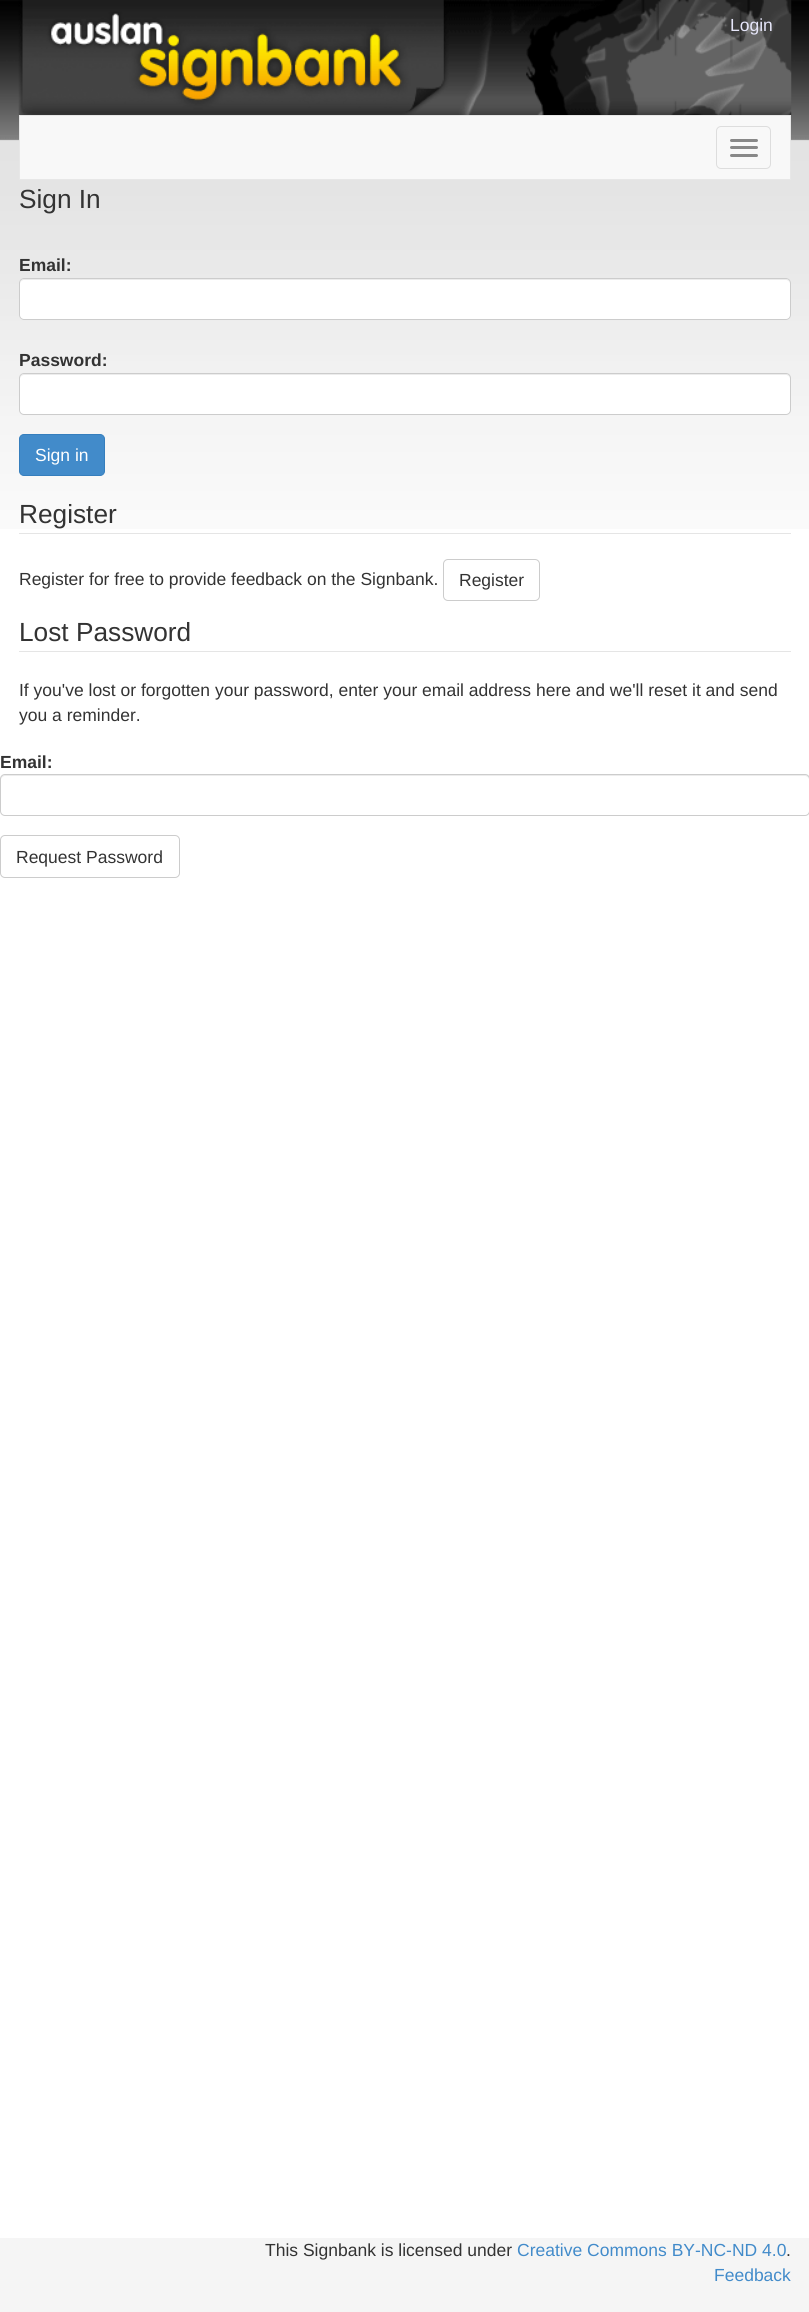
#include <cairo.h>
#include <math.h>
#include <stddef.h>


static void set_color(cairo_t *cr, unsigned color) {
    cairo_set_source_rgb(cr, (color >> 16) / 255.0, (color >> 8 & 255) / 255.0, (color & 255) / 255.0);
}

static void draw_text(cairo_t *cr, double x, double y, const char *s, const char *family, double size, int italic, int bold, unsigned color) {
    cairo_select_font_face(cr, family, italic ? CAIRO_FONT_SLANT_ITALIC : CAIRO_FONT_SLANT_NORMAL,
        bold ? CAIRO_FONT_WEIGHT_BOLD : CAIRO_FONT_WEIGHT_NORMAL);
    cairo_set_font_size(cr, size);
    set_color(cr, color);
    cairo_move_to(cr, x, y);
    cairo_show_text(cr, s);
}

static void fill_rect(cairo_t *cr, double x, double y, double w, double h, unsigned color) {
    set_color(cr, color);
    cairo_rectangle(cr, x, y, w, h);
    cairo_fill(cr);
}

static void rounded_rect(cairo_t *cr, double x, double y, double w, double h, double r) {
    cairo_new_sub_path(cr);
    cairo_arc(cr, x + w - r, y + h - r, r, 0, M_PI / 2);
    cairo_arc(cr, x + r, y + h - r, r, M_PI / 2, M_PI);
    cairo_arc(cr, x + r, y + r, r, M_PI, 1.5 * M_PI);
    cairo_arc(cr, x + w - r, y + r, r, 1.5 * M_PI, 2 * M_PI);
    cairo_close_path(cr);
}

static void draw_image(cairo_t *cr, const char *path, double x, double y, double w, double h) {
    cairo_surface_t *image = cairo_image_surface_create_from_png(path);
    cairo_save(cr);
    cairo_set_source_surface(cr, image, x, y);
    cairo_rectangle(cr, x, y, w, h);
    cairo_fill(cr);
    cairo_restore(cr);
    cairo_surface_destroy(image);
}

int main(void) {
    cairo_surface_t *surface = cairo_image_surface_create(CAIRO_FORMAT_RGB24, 809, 2312);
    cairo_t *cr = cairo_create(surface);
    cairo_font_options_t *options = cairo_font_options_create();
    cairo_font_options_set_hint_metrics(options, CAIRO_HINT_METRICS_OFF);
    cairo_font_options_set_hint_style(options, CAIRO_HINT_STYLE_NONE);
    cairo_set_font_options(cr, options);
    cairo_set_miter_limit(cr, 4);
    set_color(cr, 0xFFFFFF);
    cairo_paint(cr);
    draw_image(cr, "assets/img1.png", 0, 0, 809, 529);
    draw_image(cr, "assets/img2.png", 18, 0, 774, 115);
    draw_text(cr, 730, 31, "Login", "Liberation Sans", 17.5, 0, 0, 0xE6E6FA);
    set_color(cr, 0xF8F8F8);
    cairo_rectangle(cr, 19.5, 115.5, 771, 64);
    cairo_fill_preserve(cr);
    set_color(cr, 0xE7E7E7);
    cairo_set_line_width(cr, 1);
    cairo_stroke(cr);
    rounded_rect(cr, 716.5, 126.5, 54, 42, 4.5);
    set_color(cr, 0xDDDDDD);
    cairo_stroke(cr);
    set_color(cr, 0x888888);
    rounded_rect(cr, 730, 139, 28, 3, 1.5);
    cairo_fill(cr);
    rounded_rect(cr, 730, 146, 28, 3, 1.5);
    cairo_fill(cr);
    rounded_rect(cr, 730, 154, 28, 3, 1.5);
    cairo_fill(cr);
    draw_text(cr, 19, 208, "Sign In", "Liberation Sans", 26.25, 0, 0, 0x333333);
    draw_text(cr, 19, 271, "Email:", "Liberation Sans", 17.5, 0, 1, 0x333333);
    set_color(cr, 0xFFFFFF);
    rounded_rect(cr, 19, 278, 772, 42, 5);
    cairo_fill(cr);
    set_color(cr, 0xECECEC);
    cairo_new_path(cr);
    cairo_move_to(cr, 24, 280);
    cairo_line_to(cr, 786, 280);
    cairo_curve_to(cr, 788, 280, 790, 282, 790, 284);
    cairo_line_to(cr, 790, 283);
    cairo_curve_to(cr, 790, 281, 788, 279, 786, 279);
    cairo_line_to(cr, 24, 279);
    cairo_curve_to(cr, 22, 279, 20, 281, 20, 283);
    cairo_line_to(cr, 20, 284);
    cairo_curve_to(cr, 20, 282, 22, 280, 24, 280);
    cairo_close_path(cr);
    cairo_fill(cr);
    rounded_rect(cr, 19.5, 278.5, 771, 41, 4.5);
    set_color(cr, 0xCCCCCC);
    cairo_stroke(cr);
    draw_text(cr, 19, 366, "Password:", "Liberation Sans", 17.5, 0, 1, 0x333333);
    set_color(cr, 0xFFFFFF);
    rounded_rect(cr, 19, 373, 772, 42, 5);
    cairo_fill(cr);
    set_color(cr, 0xECECEC);
    cairo_new_path(cr);
    cairo_move_to(cr, 24, 375);
    cairo_line_to(cr, 786, 375);
    cairo_curve_to(cr, 788, 375, 790, 377, 790, 379);
    cairo_line_to(cr, 790, 378);
    cairo_curve_to(cr, 790, 376, 788, 374, 786, 374);
    cairo_line_to(cr, 24, 374);
    cairo_curve_to(cr, 22, 374, 20, 376, 20, 378);
    cairo_line_to(cr, 20, 379);
    cairo_curve_to(cr, 20, 377, 22, 375, 24, 375);
    cairo_close_path(cr);
    cairo_fill(cr);
    rounded_rect(cr, 19.5, 373.5, 771, 41, 4.5);
    set_color(cr, 0xCCCCCC);
    cairo_stroke(cr);
    set_color(cr, 0x428BCA);
    rounded_rect(cr, 19.5, 434.5, 85, 41, 4.5);
    cairo_fill_preserve(cr);
    set_color(cr, 0x357EBD);
    cairo_stroke(cr);
    draw_text(cr, 35, 461, "Sign in", "Liberation Sans", 17.5, 0, 0, 0xFFFFFF);
    fill_rect(cr, 19, 533, 772, 1, 0xE5E5E5);
    draw_text(cr, 19, 523, "Register", "Liberation Sans", 26.25, 0, 0, 0x333333);
    draw_text(cr, 19, 585, "Register for free to provide feedback on the Signbank.", "Liberation Sans", 17.5, 0, 0, 0x333333);
    rounded_rect(cr, 443.5, 559.5, 96, 41, 4.5);
    set_color(cr, 0xCCCCCC);
    cairo_stroke(cr);
    draw_text(cr, 459, 586, "Register", "Liberation Sans", 17.5, 0, 0, 0x333333);
    fill_rect(cr, 19, 651, 772, 1, 0xE5E5E5);
    draw_text(cr, 19, 641, "Lost Password", "Liberation Sans", 26.25, 0, 0, 0x333333);
    draw_text(cr, 19, 696, "If you've lost or forgotten your password, enter your email address here and we'll reset it and send", "Liberation Sans", 17.5, 0, 0, 0x333333);
    draw_text(cr, 19, 721, "you a reminder.", "Liberation Sans", 17.5, 0, 0, 0x333333);
    draw_text(cr, 0, 768, "Email:", "Liberation Sans", 17.5, 0, 1, 0x333333);
    set_color(cr, 0xECECEC);
    cairo_new_path(cr);
    cairo_move_to(cr, 5, 776);
    cairo_line_to(cr, 805, 776);
    cairo_curve_to(cr, 807, 776, 809, 778, 809, 780);
    cairo_curve_to(cr, 809, 777, 808, 775, 805, 775);
    cairo_line_to(cr, 5, 775);
    cairo_curve_to(cr, 2, 775, 1, 777, 1, 780);
    cairo_curve_to(cr, 1, 778, 3, 776, 5, 776);
    cairo_close_path(cr);
    cairo_fill(cr);
    rounded_rect(cr, 0.5, 774.5, 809, 41, 4.5);
    set_color(cr, 0xCCCCCC);
    cairo_stroke(cr);
    rounded_rect(cr, 0.5, 835.5, 179, 42, 4.5);
    cairo_stroke(cr);
    draw_text(cr, 16, 863, "Request Password", "Liberation Sans", 17.5, 0, 0, 0x333333);
    fill_rect(cr, 0, 2238, 809, 74, 0xF5F5F5);
    draw_text(cr, 265, 2256, "This Signbank is licensed under", "Liberation Sans", 17.5, 0, 0, 0x333333);
    draw_text(cr, 517, 2256, "Creative Commons BY-NC-ND 4.0", "Liberation Sans", 17.5, 0, 0, 0x428BCA);
    draw_text(cr, 786, 2256, ".", "Liberation Sans", 17.5, 0, 0, 0x333333);
    draw_text(cr, 714, 2281, "Feedback", "Liberation Sans", 17.5, 0, 0, 0x428BCA);
    cairo_surface_write_to_png(surface, "output.png");
    cairo_font_options_destroy(options);
    cairo_destroy(cr);
    cairo_surface_destroy(surface);
    return 0;
}
